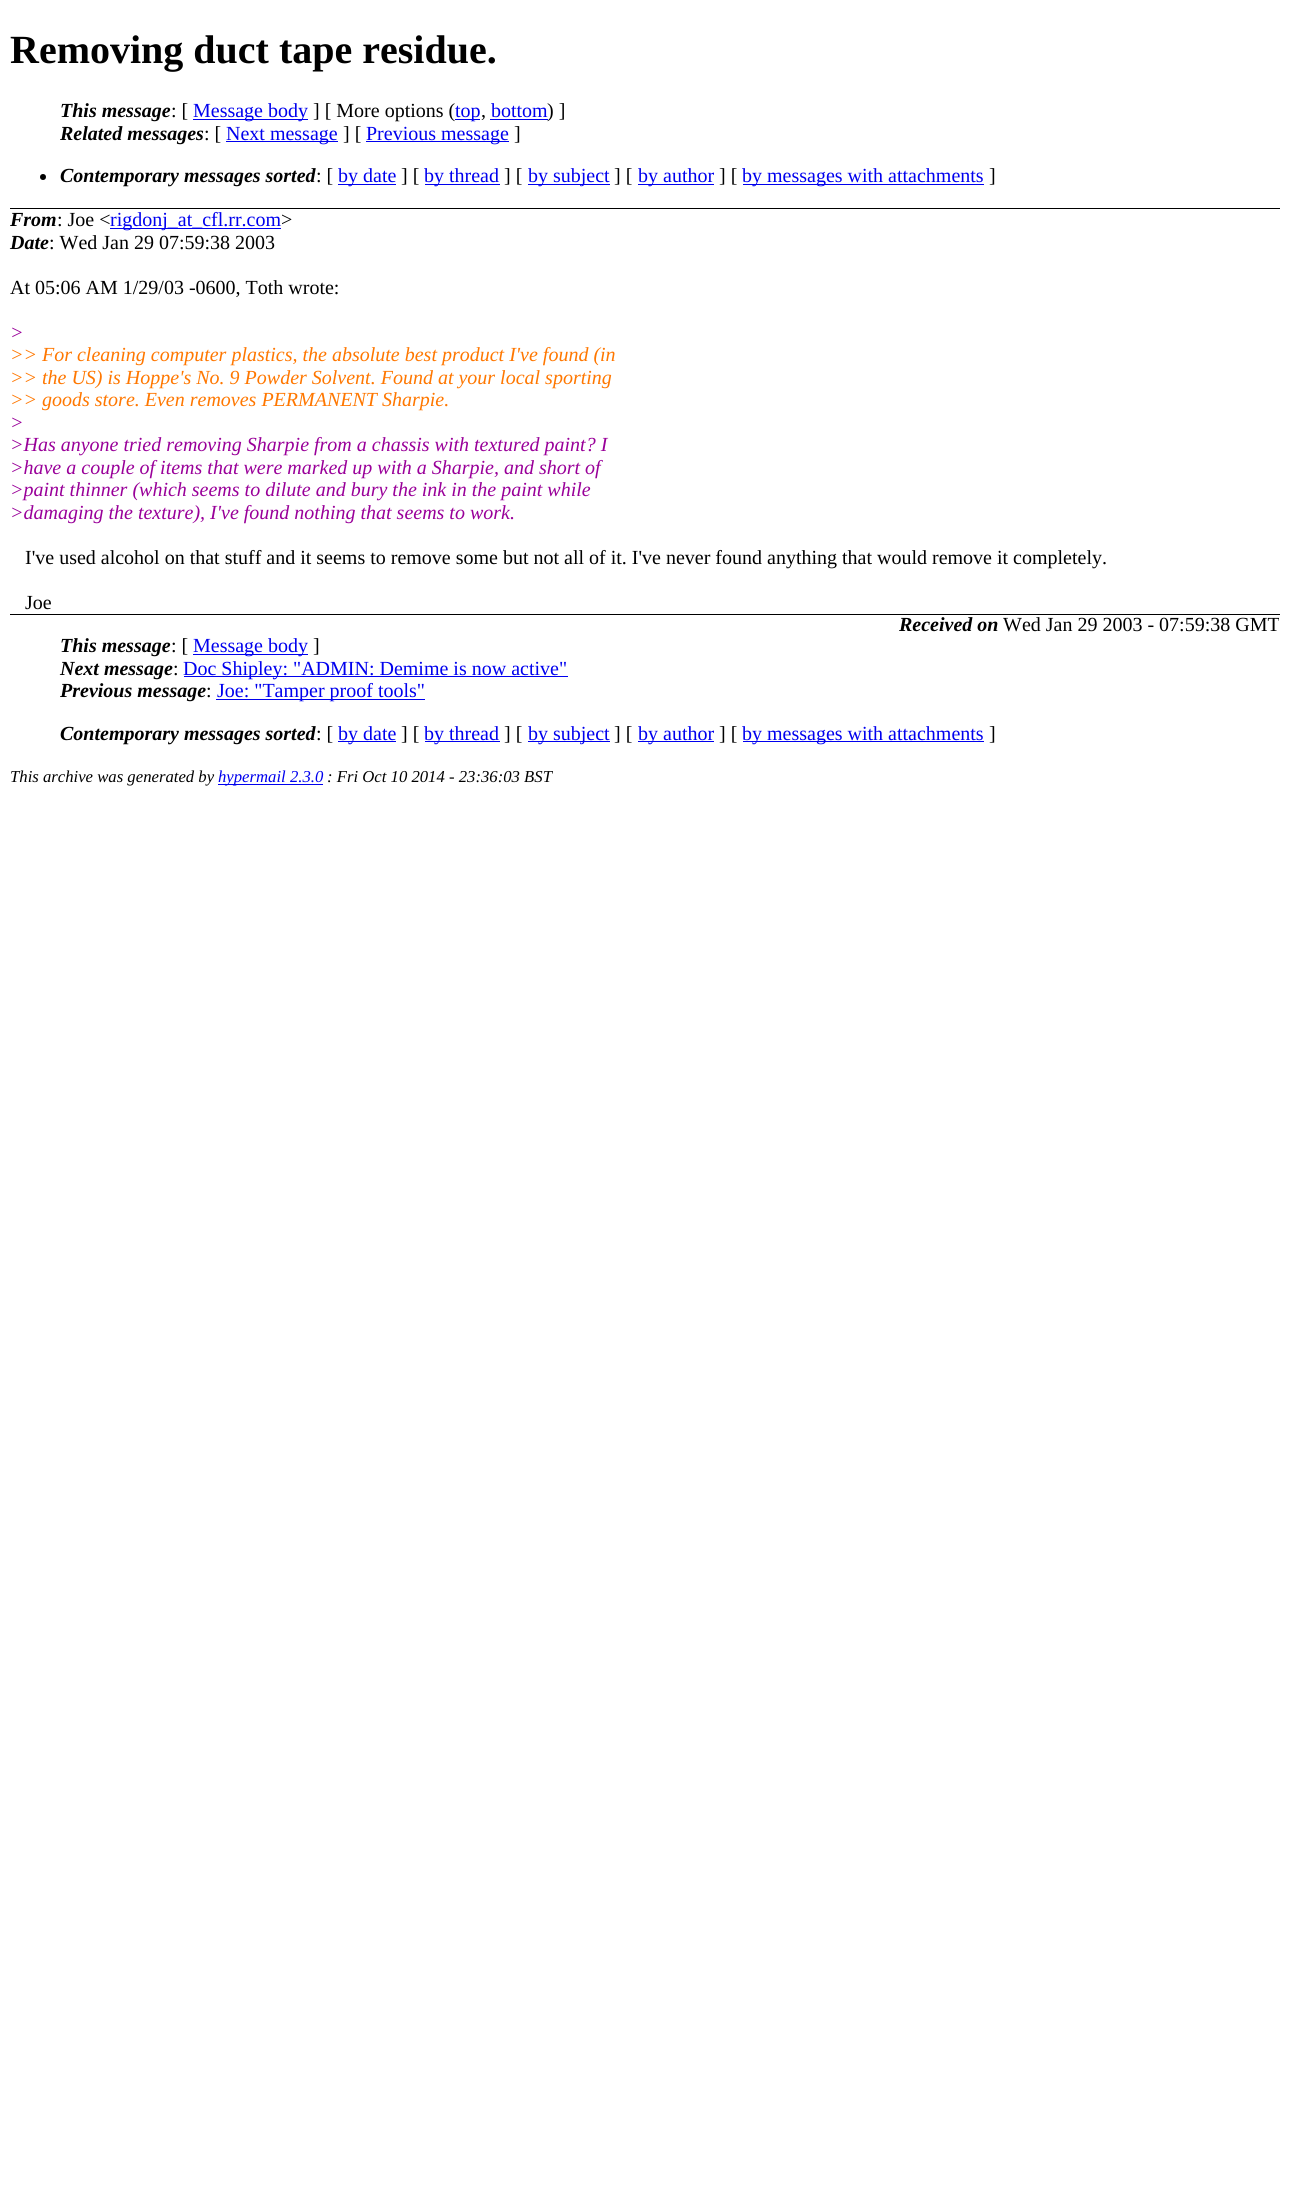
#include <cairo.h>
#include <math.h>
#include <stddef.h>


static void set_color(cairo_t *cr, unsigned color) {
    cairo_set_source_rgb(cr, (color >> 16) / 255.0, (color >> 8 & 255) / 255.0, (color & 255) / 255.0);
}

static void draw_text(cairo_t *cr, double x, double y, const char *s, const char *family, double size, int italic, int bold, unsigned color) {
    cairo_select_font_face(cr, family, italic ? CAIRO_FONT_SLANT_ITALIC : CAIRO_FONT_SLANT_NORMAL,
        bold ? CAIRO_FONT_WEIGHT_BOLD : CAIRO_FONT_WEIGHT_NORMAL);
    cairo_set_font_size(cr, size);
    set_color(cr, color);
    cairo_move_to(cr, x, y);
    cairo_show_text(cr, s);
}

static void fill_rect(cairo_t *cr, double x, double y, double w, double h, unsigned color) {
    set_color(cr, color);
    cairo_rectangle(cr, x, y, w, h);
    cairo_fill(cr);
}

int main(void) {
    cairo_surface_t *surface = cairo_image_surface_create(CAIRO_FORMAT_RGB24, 1289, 2186);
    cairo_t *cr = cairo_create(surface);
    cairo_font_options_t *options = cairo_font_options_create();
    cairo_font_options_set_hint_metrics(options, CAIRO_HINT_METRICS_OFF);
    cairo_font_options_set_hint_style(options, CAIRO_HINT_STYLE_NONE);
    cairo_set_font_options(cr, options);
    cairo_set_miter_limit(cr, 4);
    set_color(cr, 0xFFFFFF);
    cairo_paint(cr);
    fill_rect(cr, 10, 208, 1270, 1, 0x000000);
    draw_text(cr, 10, 63, "Removing duct tape residue.", "Liberation Serif", 40, 0, 1, 0x000000);
    draw_text(cr, 60, 117, "This message", "Liberation Serif", 20, 1, 1, 0x000000);
    draw_text(cr, 171, 117, ": [", "Liberation Serif", 20, 0, 0, 0x000000);
    fill_rect(cr, 193, 119, 115, 1, 0x0000EE);
    draw_text(cr, 193, 117, "Message body", "Liberation Serif", 20, 0, 0, 0x0000EE);
    draw_text(cr, 313, 117, "] [ More options (", "Liberation Serif", 20, 0, 0, 0x000000);
    fill_rect(cr, 455, 119, 25, 1, 0x0000EE);
    draw_text(cr, 455, 117, "top", "Liberation Serif", 20, 0, 0, 0x0000EE);
    draw_text(cr, 481, 117, ",", "Liberation Serif", 20, 0, 0, 0x000000);
    draw_text(cr, 491, 117, "bottom", "Liberation Serif", 20, 0, 0, 0x0000EE);
    fill_rect(cr, 490, 119, 58, 1, 0x0000EE);
    draw_text(cr, 547, 117, ") ]", "Liberation Serif", 20, 0, 0, 0x000000);
    draw_text(cr, 60, 140, "Related messages", "Liberation Serif", 20, 1, 1, 0x000000);
    draw_text(cr, 204, 140, ": [", "Liberation Serif", 20, 0, 0, 0x000000);
    fill_rect(cr, 226, 141, 112, 1, 0x0000EE);
    draw_text(cr, 226, 140, "Next message", "Liberation Serif", 20, 0, 0, 0x0000EE);
    draw_text(cr, 343, 140, "] [", "Liberation Serif", 20, 0, 0, 0x000000);
    fill_rect(cr, 366, 141, 143, 1, 0x0000EE);
    draw_text(cr, 366, 140, "Previous message", "Liberation Serif", 20, 0, 0, 0x0000EE);
    draw_text(cr, 514, 140, "]", "Liberation Serif", 20, 0, 0, 0x000000);
    cairo_new_path(cr);
    cairo_arc(cr, 43, 177, 3, 0, 2 * M_PI);
    cairo_fill(cr);
    draw_text(cr, 60, 182, "Contemporary messages sorted", "Liberation Serif", 20, 1, 1, 0x000000);
    draw_text(cr, 316, 182, ": [", "Liberation Serif", 20, 0, 0, 0x000000);
    fill_rect(cr, 338, 184, 58, 1, 0x0000EE);
    draw_text(cr, 338, 182, "by date", "Liberation Serif", 20, 0, 0, 0x0000EE);
    draw_text(cr, 401, 182, "] [", "Liberation Serif", 20, 0, 0, 0x000000);
    fill_rect(cr, 425, 184, 75, 1, 0x0000EE);
    draw_text(cr, 424, 182, "by thread", "Liberation Serif", 20, 0, 0, 0x0000EE);
    draw_text(cr, 504, 182, "] [", "Liberation Serif", 20, 0, 0, 0x000000);
    fill_rect(cr, 528, 184, 82, 1, 0x0000EE);
    draw_text(cr, 528, 182, "by subject", "Liberation Serif", 20, 0, 0, 0x0000EE);
    draw_text(cr, 614, 182, "] [", "Liberation Serif", 20, 0, 0, 0x000000);
    fill_rect(cr, 638, 184, 76, 1, 0x0000EE);
    draw_text(cr, 638, 182, "by author", "Liberation Serif", 20, 0, 0, 0x0000EE);
    draw_text(cr, 719, 182, "] [", "Liberation Serif", 20, 0, 0, 0x000000);
    fill_rect(cr, 743, 184, 241, 1, 0x0000EE);
    draw_text(cr, 742, 182, "by messages with attachments", "Liberation Serif", 20, 0, 0, 0x0000EE);
    draw_text(cr, 989, 182, "]", "Liberation Serif", 20, 0, 0, 0x000000);
    draw_text(cr, 10, 226, "From", "Liberation Serif", 20, 1, 1, 0x000000);
    draw_text(cr, 57, 226, ": Joe <", "Liberation Serif", 20, 0, 0, 0x000000);
    fill_rect(cr, 110, 228, 171, 1, 0x0000EE);
    draw_text(cr, 110, 226, "rigdonj_at_cfl.rr.com", "Liberation Serif", 20, 0, 0, 0x0000EE);
    draw_text(cr, 281, 226, ">", "Liberation Serif", 20, 0, 0, 0x000000);
    draw_text(cr, 10, 249, "Date", "Liberation Serif", 20, 1, 1, 0x000000);
    draw_text(cr, 49, 249, ": Wed Jan 29 07:59:38 2003", "Liberation Serif", 20, 0, 0, 0x000000);
    draw_text(cr, 10, 294, "At 05:06 AM 1/29/03 -0600, Toth wrote:", "Liberation Serif", 20, 0, 0, 0x000000);
    draw_text(cr, 10, 339, ">", "Liberation Serif", 20, 1, 0, 0x990099);
    draw_text(cr, 10, 361, ">> For cleaning computer plastics, the absolute best product I've found (in", "Liberation Serif", 20, 1, 0, 0xFF7700);
    draw_text(cr, 10, 384, ">> the US) is Hoppe's No. 9 Powder Solvent. Found at your local sporting", "Liberation Serif", 20, 1, 0, 0xFF7700);
    draw_text(cr, 10, 406, ">> goods store. Even removes PERMANENT Sharpie.", "Liberation Serif", 20, 1, 0, 0xFF7700);
    draw_text(cr, 10, 429, ">", "Liberation Serif", 20, 1, 0, 0x990099);
    draw_text(cr, 10, 451, ">Has anyone tried removing Sharpie from a chassis with textured paint? I", "Liberation Serif", 20, 1, 0, 0x990099);
    draw_text(cr, 10, 474, ">have a couple of items that were marked up with a Sharpie, and short of", "Liberation Serif", 20, 1, 0, 0x990099);
    draw_text(cr, 10, 496, ">paint thinner (which seems to dilute and bury the ink in the paint while", "Liberation Serif", 20, 1, 0, 0x990099);
    draw_text(cr, 10, 519, ">damaging the texture), I've found nothing that seems to work.", "Liberation Serif", 20, 1, 0, 0x990099);
    draw_text(cr, 25, 564, "I've used alcohol on that stuff and it seems to remove some but not all of it. I've never found anything that would remove it completely.", "Liberation Serif", 20, 0, 0, 0x000000);
    draw_text(cr, 25, 609, "Joe", "Liberation Serif", 20, 0, 0, 0x000000);
    draw_text(cr, 899, 631, "Received on", "Liberation Serif", 20, 1, 1, 0x000000);
    draw_text(cr, 1003, 631, "Wed Jan 29 2003 - 07:59:38 GMT", "Liberation Serif", 20, 0, 0, 0x000000);
    fill_rect(cr, 10, 614, 1270, 1, 0x000000);
    draw_text(cr, 60, 652, "This message", "Liberation Serif", 20, 1, 1, 0x000000);
    draw_text(cr, 171, 652, ": [", "Liberation Serif", 20, 0, 0, 0x000000);
    fill_rect(cr, 193, 654, 115, 1, 0x0000EE);
    draw_text(cr, 193, 652, "Message body", "Liberation Serif", 20, 0, 0, 0x0000EE);
    draw_text(cr, 313, 652, "]", "Liberation Serif", 20, 0, 0, 0x000000);
    draw_text(cr, 60, 675, "Next message", "Liberation Serif", 20, 1, 1, 0x000000);
    draw_text(cr, 173, 675, ":", "Liberation Serif", 20, 0, 0, 0x000000);
    fill_rect(cr, 184, 676, 384, 1, 0x0000EE);
    draw_text(cr, 183, 675, "Doc Shipley: \"ADMIN: Demime is now active\"", "Liberation Serif", 20, 0, 0, 0x0000EE);
    draw_text(cr, 60, 697, "Previous message", "Liberation Serif", 20, 1, 1, 0x000000);
    draw_text(cr, 206, 697, ":", "Liberation Serif", 20, 0, 0, 0x000000);
    fill_rect(cr, 216, 699, 209, 1, 0x0000EE);
    draw_text(cr, 217, 697, "Joe: \"Tamper proof tools\"", "Liberation Serif", 20, 0, 0, 0x0000EE);
    draw_text(cr, 60, 740, "Contemporary messages sorted", "Liberation Serif", 20, 1, 1, 0x000000);
    draw_text(cr, 316, 740, ": [", "Liberation Serif", 20, 0, 0, 0x000000);
    fill_rect(cr, 338, 741, 58, 1, 0x0000EE);
    draw_text(cr, 338, 740, "by date", "Liberation Serif", 20, 0, 0, 0x0000EE);
    draw_text(cr, 401, 740, "] [", "Liberation Serif", 20, 0, 0, 0x000000);
    fill_rect(cr, 425, 741, 75, 1, 0x0000EE);
    draw_text(cr, 424, 740, "by thread", "Liberation Serif", 20, 0, 0, 0x0000EE);
    draw_text(cr, 504, 740, "] [", "Liberation Serif", 20, 0, 0, 0x000000);
    fill_rect(cr, 528, 741, 82, 1, 0x0000EE);
    draw_text(cr, 528, 740, "by subject", "Liberation Serif", 20, 0, 0, 0x0000EE);
    draw_text(cr, 614, 740, "] [", "Liberation Serif", 20, 0, 0, 0x000000);
    fill_rect(cr, 638, 741, 76, 1, 0x0000EE);
    draw_text(cr, 638, 740, "by author", "Liberation Serif", 20, 0, 0, 0x0000EE);
    draw_text(cr, 719, 740, "] [", "Liberation Serif", 20, 0, 0, 0x000000);
    fill_rect(cr, 743, 741, 241, 1, 0x0000EE);
    draw_text(cr, 742, 740, "by messages with attachments", "Liberation Serif", 20, 0, 0, 0x0000EE);
    draw_text(cr, 989, 740, "]", "Liberation Serif", 20, 0, 0, 0x000000);
    draw_text(cr, 10, 782, "This archive was generated by", "Liberation Serif", 16.7, 1, 0, 0x000000);
    fill_rect(cr, 218, 784, 105, 1, 0x0000EE);
    draw_text(cr, 218, 782, "hypermail 2.3.0", "Liberation Serif", 16.7, 1, 0, 0x0000EE);
    draw_text(cr, 327, 782, ": Fri Oct 10 2014 - 23:36:03 BST", "Liberation Serif", 16.7, 1, 0, 0x000000);
    cairo_surface_write_to_png(surface, "output.png");
    cairo_font_options_destroy(options);
    cairo_destroy(cr);
    cairo_surface_destroy(surface);
    return 0;
}
